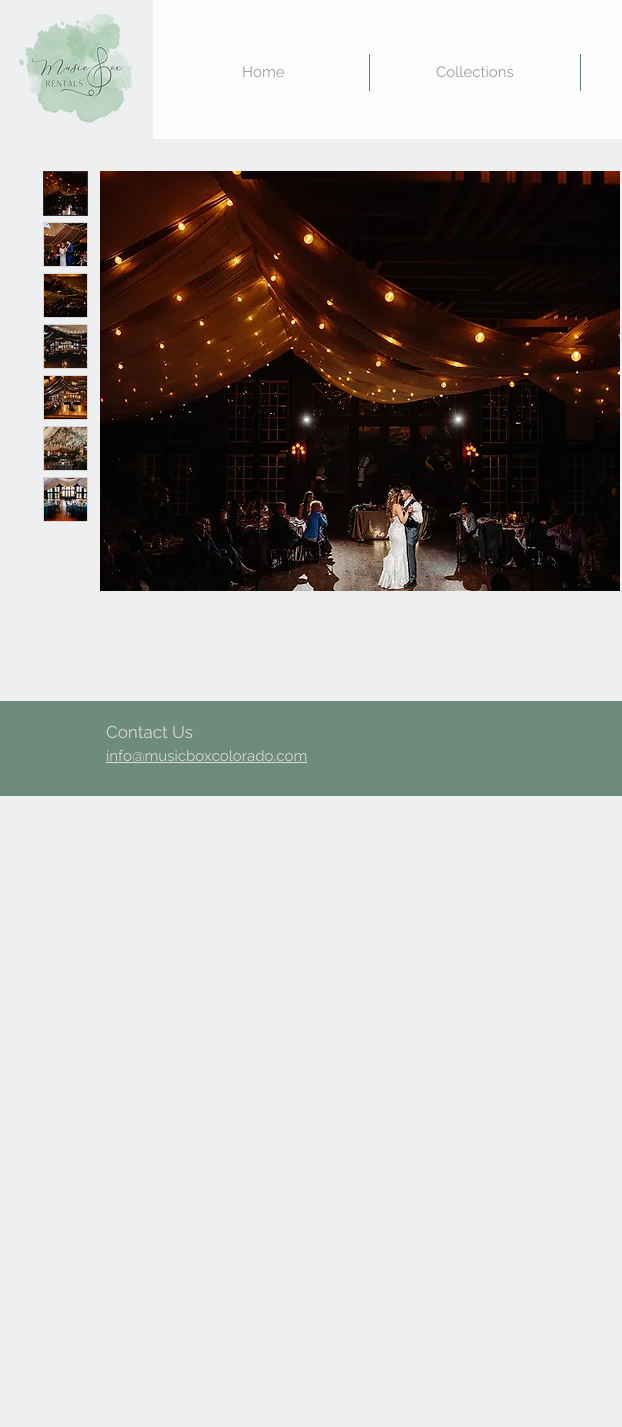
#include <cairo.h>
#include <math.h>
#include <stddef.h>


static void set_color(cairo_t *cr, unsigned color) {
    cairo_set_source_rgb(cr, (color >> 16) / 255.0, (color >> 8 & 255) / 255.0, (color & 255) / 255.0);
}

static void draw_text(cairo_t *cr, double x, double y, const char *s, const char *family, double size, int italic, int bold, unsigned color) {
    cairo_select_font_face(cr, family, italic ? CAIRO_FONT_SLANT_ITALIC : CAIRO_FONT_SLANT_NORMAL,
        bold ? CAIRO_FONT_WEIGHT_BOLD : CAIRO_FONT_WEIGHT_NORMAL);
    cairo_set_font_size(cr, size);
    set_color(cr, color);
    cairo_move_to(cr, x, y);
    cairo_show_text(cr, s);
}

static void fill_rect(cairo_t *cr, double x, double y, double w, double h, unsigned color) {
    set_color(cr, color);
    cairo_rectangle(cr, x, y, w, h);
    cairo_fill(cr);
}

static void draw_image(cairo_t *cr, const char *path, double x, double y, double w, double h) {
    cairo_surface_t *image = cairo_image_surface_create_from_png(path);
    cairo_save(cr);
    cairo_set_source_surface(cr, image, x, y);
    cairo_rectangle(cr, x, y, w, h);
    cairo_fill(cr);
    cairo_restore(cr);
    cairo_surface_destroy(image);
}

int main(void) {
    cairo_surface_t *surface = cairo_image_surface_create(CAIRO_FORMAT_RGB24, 622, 1427);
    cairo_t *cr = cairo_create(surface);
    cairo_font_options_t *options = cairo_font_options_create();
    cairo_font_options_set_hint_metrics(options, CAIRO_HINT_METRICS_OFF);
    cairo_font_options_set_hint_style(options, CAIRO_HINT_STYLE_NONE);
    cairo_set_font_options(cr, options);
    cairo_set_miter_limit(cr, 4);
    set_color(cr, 0xEDEFF0);
    cairo_paint(cr);
    fill_rect(cr, 153, 0, 469, 139, 0xFDFDFE);
    draw_image(cr, "assets/img1.png", 18, 12, 120, 118);
    draw_text(cr, 242, 77, "Home", "Raleway", 15, 0, 0, 0x9C9C9C);
    fill_rect(cr, 369, 54, 1, 37, 0x607D82);
    draw_text(cr, 436, 77, "Collections", "Raleway", 15, 0, 0, 0x9C9C9C);
    fill_rect(cr, 580, 54, 1, 37, 0x607D82);
    cairo_rectangle(cr, 43.5, 171.5, 44, 44);
    set_color(cr, 0x2F2F2F);
    cairo_set_line_width(cr, 1);
    cairo_stroke(cr);
    draw_image(cr, "assets/img2.png", 44, 172, 43, 43);
    fill_rect(cr, 43, 222, 45, 45, 0xD6D6D6);
    draw_image(cr, "assets/img3.png", 44, 223, 43, 43);
    fill_rect(cr, 43, 273, 45, 45, 0xD6D6D6);
    draw_image(cr, "assets/img4.png", 44, 274, 43, 43);
    fill_rect(cr, 43, 324, 45, 45, 0xD6D6D6);
    draw_image(cr, "assets/img5.png", 44, 325, 43, 43);
    fill_rect(cr, 43, 375, 45, 45, 0xD6D6D6);
    draw_image(cr, "assets/img6.png", 44, 376, 43, 43);
    fill_rect(cr, 43, 426, 45, 45, 0xD6D6D6);
    draw_image(cr, "assets/img7.png", 44, 427, 43, 43);
    fill_rect(cr, 43, 477, 45, 45, 0xD6D6D6);
    draw_image(cr, "assets/img8.png", 44, 478, 43, 43);
    draw_image(cr, "assets/img9.png", 100, 171, 520, 420);
    fill_rect(cr, 0, 701, 622, 95, 0x6D8C7D);
    draw_text(cr, 106, 738, "Contact Us", "Raleway", 17, 0, 0, 0xD6D6D6);
    fill_rect(cr, 106, 762, 201, 1, 0xDBDBDB);
    draw_text(cr, 106, 761, "info@musicboxcolorado.com", "Raleway", 15, 0, 0, 0xD6D6D6);
    cairo_surface_write_to_png(surface, "output.png");
    cairo_font_options_destroy(options);
    cairo_destroy(cr);
    cairo_surface_destroy(surface);
    return 0;
}
